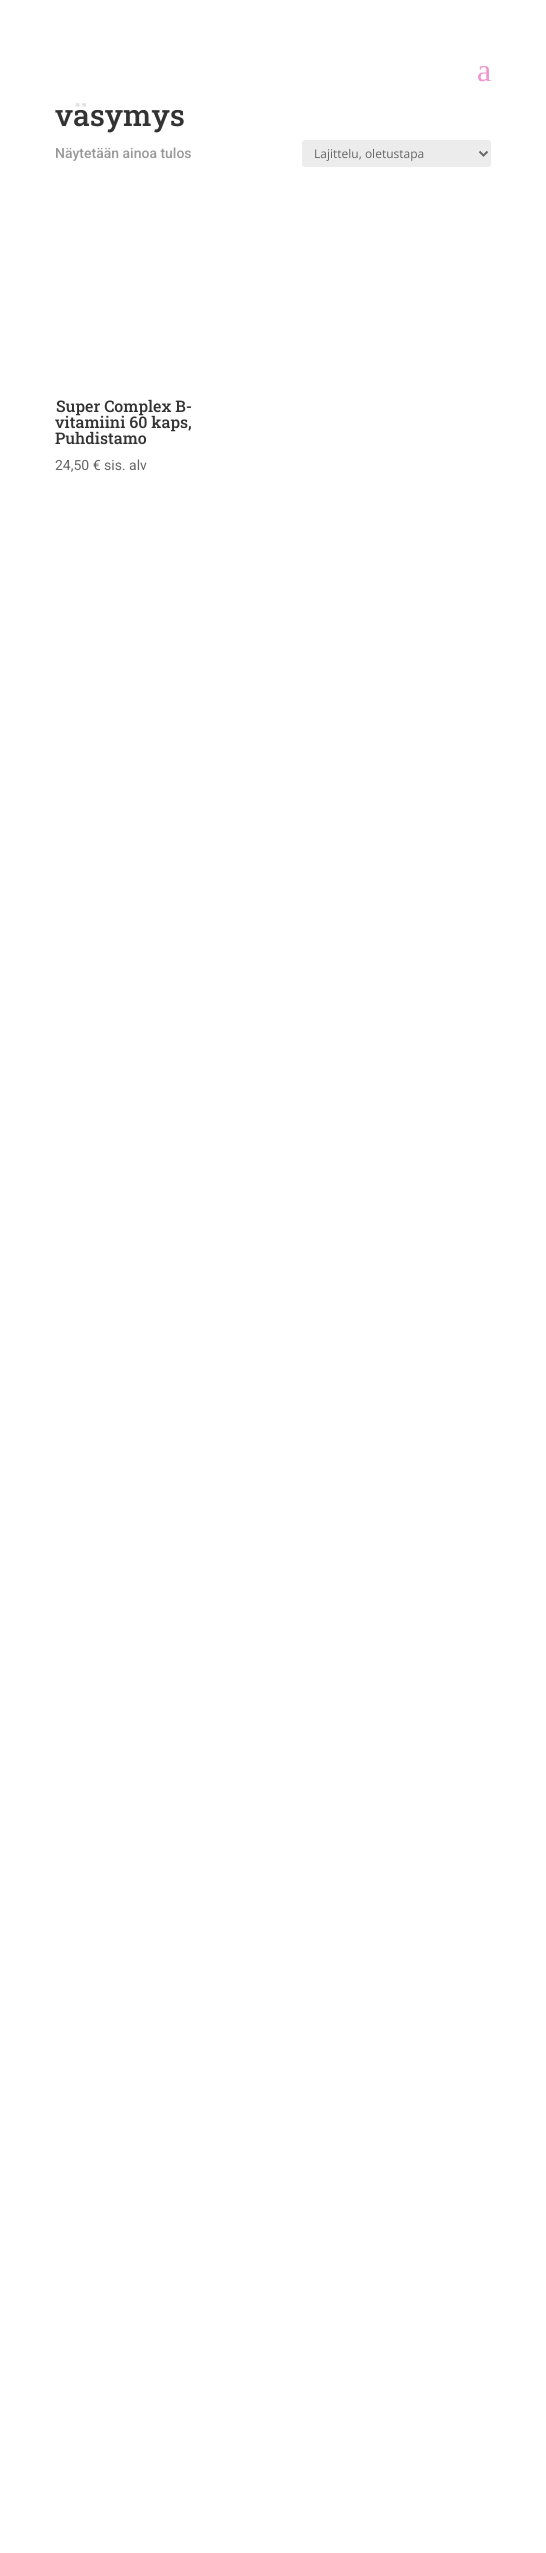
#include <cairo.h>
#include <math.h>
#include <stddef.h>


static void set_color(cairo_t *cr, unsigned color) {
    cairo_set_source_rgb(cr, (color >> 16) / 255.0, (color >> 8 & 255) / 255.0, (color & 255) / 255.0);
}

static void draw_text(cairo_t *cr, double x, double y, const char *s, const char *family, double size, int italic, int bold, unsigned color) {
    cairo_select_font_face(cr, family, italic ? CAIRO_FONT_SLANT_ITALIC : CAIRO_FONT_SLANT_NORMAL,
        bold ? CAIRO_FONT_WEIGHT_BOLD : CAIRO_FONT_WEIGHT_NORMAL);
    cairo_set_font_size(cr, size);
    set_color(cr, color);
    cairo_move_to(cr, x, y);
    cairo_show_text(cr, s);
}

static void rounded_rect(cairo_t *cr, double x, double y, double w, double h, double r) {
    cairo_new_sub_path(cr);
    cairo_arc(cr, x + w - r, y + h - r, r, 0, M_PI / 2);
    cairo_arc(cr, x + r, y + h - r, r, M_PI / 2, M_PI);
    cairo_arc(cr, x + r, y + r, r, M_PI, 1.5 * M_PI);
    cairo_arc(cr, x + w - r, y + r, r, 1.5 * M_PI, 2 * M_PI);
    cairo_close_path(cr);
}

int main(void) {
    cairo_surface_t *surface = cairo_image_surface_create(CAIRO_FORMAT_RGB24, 546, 2553);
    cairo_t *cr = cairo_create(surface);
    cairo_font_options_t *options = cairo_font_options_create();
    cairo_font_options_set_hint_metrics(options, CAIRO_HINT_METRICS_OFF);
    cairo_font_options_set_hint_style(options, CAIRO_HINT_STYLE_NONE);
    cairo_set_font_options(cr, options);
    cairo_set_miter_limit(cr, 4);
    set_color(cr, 0xFFFFFF);
    cairo_paint(cr);
    draw_text(cr, 55, 126, "väsymys", "Roboto Slab Medium", 30, 0, 0, 0x333333);
    cairo_set_source_rgba(cr, 1, 1, 1, 0.85);
    cairo_rectangle(cr, 75, 103, 104, 7);
    cairo_fill(cr);
    draw_text(cr, 477, 81, "a", "Liberation Serif", 32, 0, 0, 0xEF95CC);
    draw_text(cr, 55, 158, "Näytetään ainoa tulos", "Roboto Medium", 14, 0, 0, 0x999999);
    set_color(cr, 0xECECEC);
    rounded_rect(cr, 302, 140, 189, 27, 3);
    cairo_fill(cr);
    cairo_new_path(cr);
    cairo_move_to(cr, 479.5, 151.5);
    cairo_line_to(cr, 483.5, 155.5);
    cairo_line_to(cr, 487.5, 151.5);
    set_color(cr, 0x666666);
    cairo_stroke(cr);
    draw_text(cr, 314, 158, "Lajittelu, oletustapa", "Open Sans", 12, 0, 0, 0x666666);
    draw_text(cr, 56, 412, "Super Complex B-", "Roboto Slab Medium", 16, 0, 0, 0x333333);
    draw_text(cr, 55, 428, "vitamiini 60 kaps,", "Roboto Slab Medium", 16, 0, 0, 0x333333);
    draw_text(cr, 55, 444, "Puhdistamo", "Roboto Slab Medium", 16, 0, 0, 0x333333);
    draw_text(cr, 55, 470, "24,50 € sis. alv", "Roboto", 14, 0, 0, 0x666666);
    cairo_surface_write_to_png(surface, "output.png");
    cairo_font_options_destroy(options);
    cairo_destroy(cr);
    cairo_surface_destroy(surface);
    return 0;
}
